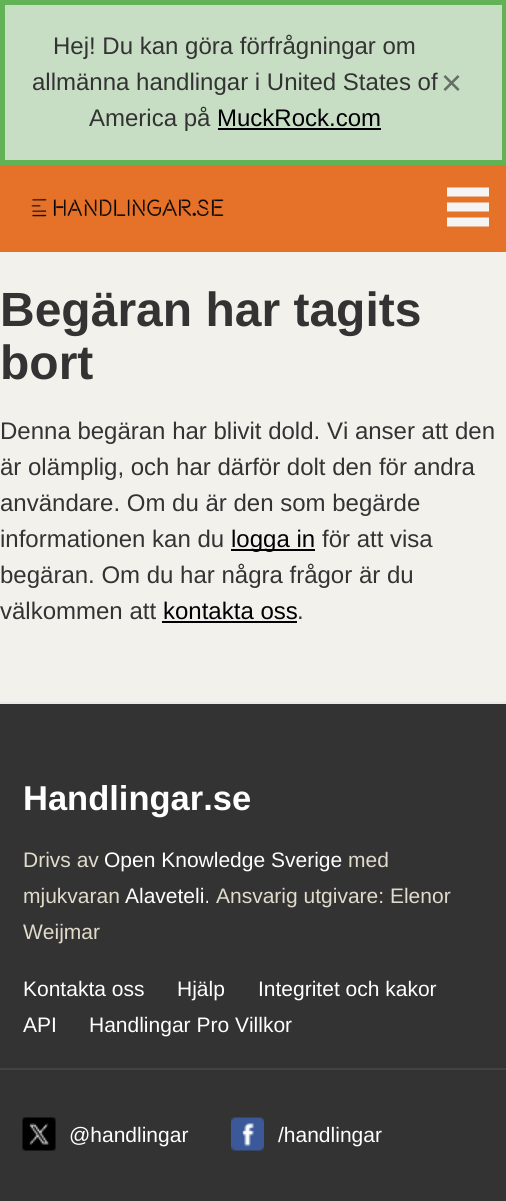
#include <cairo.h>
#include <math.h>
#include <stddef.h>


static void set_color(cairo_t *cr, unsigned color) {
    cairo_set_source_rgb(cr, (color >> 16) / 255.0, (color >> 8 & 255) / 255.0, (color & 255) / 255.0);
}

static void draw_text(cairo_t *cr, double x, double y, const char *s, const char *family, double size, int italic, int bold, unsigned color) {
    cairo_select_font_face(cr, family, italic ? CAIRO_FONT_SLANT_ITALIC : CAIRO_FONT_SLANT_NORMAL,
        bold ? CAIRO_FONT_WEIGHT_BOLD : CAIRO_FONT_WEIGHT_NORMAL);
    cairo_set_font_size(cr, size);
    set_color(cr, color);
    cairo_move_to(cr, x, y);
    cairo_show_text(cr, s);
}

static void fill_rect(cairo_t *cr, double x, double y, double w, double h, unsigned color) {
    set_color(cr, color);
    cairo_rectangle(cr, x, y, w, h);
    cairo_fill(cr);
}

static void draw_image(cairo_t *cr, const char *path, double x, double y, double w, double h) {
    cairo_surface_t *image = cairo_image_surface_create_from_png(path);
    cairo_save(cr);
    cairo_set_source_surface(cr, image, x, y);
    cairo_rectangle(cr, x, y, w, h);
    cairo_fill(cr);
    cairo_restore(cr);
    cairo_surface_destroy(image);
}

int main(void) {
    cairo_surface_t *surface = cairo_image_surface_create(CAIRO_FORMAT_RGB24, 506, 1201);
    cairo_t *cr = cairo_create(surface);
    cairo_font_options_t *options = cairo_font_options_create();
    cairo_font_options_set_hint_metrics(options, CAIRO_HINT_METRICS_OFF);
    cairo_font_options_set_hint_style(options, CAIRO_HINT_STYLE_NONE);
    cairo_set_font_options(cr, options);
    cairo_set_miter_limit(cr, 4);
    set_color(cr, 0xF3F1EB);
    cairo_paint(cr);
    set_color(cr, 0xC7DEC4);
    cairo_rectangle(cr, 2.5, 2.5, 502, 160);
    cairo_fill_preserve(cr);
    set_color(cr, 0x62B356);
    cairo_set_line_width(cr, 5);
    cairo_stroke(cr);
    draw_text(cr, 53, 54, "Hej! Du kan göra förfrågningar om", "Liberation Sans", 24, 0, 0, 0x333333);
    draw_text(cr, 32, 90, "allmänna handlingar i United States of", "Liberation Sans", 24, 0, 0, 0x333333);
    draw_text(cr, 441, 95, "×", "Liberation Sans", 36, 0, 0, 0x646F65);
    draw_text(cr, 89, 126, "America på", "Liberation Sans", 24, 0, 0, 0x333333);
    draw_text(cr, 217, 126, "MuckRock.com", "Liberation Sans", 24, 0, 0, 0x010005);
    fill_rect(cr, 218, 128, 163, 2, 0x010005);
    fill_rect(cr, 0, 165, 506, 87, 0xE6722A);
    draw_image(cr, "assets/img1.png", 31, 198, 193, 19);
    draw_image(cr, "assets/img2.png", 447, 187, 42, 40);
    draw_text(cr, 0, 326, "Begäran har tagits", "Liberation Sans", 48, 0, 1, 0x333333);
    draw_text(cr, 0, 379, "bort", "Liberation Sans", 48, 0, 1, 0x333333);
    draw_text(cr, 0, 439, "Denna begäran har blivit dold. Vi anser att den", "Liberation Sans", 24, 0, 0, 0x333333);
    draw_text(cr, 0, 475, "är olämplig, och har därför dolt den för andra", "Liberation Sans", 24, 0, 0, 0x333333);
    draw_text(cr, 0, 511, "användare. Om du är den som begärde", "Liberation Sans", 24, 0, 0, 0x333333);
    draw_text(cr, 0, 547, "informationen kan du", "Liberation Sans", 24, 0, 0, 0x333333);
    fill_rect(cr, 231, 549, 84, 2, 0x010005);
    draw_text(cr, 231, 547, "logga in", "Liberation Sans", 24, 0, 0, 0x010005);
    draw_text(cr, 322, 547, "för att visa", "Liberation Sans", 24, 0, 0, 0x333333);
    draw_text(cr, 0, 583, "begäran. Om du har några frågor är du", "Liberation Sans", 24, 0, 0, 0x333333);
    draw_text(cr, 0, 619, "välkommen att", "Liberation Sans", 24, 0, 0, 0x333333);
    draw_text(cr, 163, 619, "kontakta oss", "Liberation Sans", 24, 0, 0, 0x010005);
    fill_rect(cr, 162, 621, 135, 2, 0x010005);
    draw_text(cr, 297, 619, ".", "Liberation Sans", 24, 0, 0, 0x333333);
    fill_rect(cr, 0, 704, 506, 497, 0x333333);
    fill_rect(cr, 0, 702, 506, 2, 0xE9E9E9);
    draw_text(cr, 23, 810, "Handlingar.se", "Liberation Sans", 34.5, 0, 1, 0xFFFFFF);
    draw_text(cr, 23, 867, "Drivs av", "Liberation Sans", 21, 0, 0, 0xE0DBCB);
    draw_text(cr, 104, 867, "Open Knowledge Sverige", "Liberation Sans", 21, 0, 0, 0xFFFFFF);
    draw_text(cr, 348, 867, "med", "Liberation Sans", 21, 0, 0, 0xE0DBCB);
    draw_text(cr, 23, 903, "mjukvaran", "Liberation Sans", 21, 0, 0, 0xE0DBCB);
    draw_text(cr, 125, 903, "Alaveteli.", "Liberation Sans", 21, 0, 0, 0xFFFFFF);
    draw_text(cr, 216, 903, "Ansvarig utgivare: Elenor", "Liberation Sans", 21, 0, 0, 0xE0DBCB);
    draw_text(cr, 23, 939, "Weijmar", "Liberation Sans", 21, 0, 0, 0xE0DBCB);
    draw_text(cr, 23, 996, "Kontakta oss", "Liberation Sans", 21, 0, 0, 0xFFFFFF);
    draw_text(cr, 177, 996, "Hjälp", "Liberation Sans", 21, 0, 0, 0xFFFFFF);
    draw_text(cr, 258, 996, "Integritet och kakor", "Liberation Sans", 21, 0, 0, 0xFFFFFF);
    draw_text(cr, 23, 1032, "API", "Liberation Sans", 21, 0, 0, 0xFFFFFF);
    draw_text(cr, 89, 1032, "Handlingar Pro Villkor", "Liberation Sans", 21, 0, 0, 0xFFFFFF);
    fill_rect(cr, 0, 1068, 506, 2, 0x424242);
    draw_image(cr, "assets/img3.png", 22, 1117, 34, 34);
    draw_text(cr, 69, 1142, "@handlingar", "Liberation Sans", 21, 0, 0, 0xFFFFFF);
    draw_image(cr, "assets/img4.png", 231, 1117, 33, 34);
    draw_text(cr, 278, 1142, "/handlingar", "Liberation Sans", 21, 0, 0, 0xFFFFFF);
    cairo_surface_write_to_png(surface, "output.png");
    cairo_font_options_destroy(options);
    cairo_destroy(cr);
    cairo_surface_destroy(surface);
    return 0;
}
